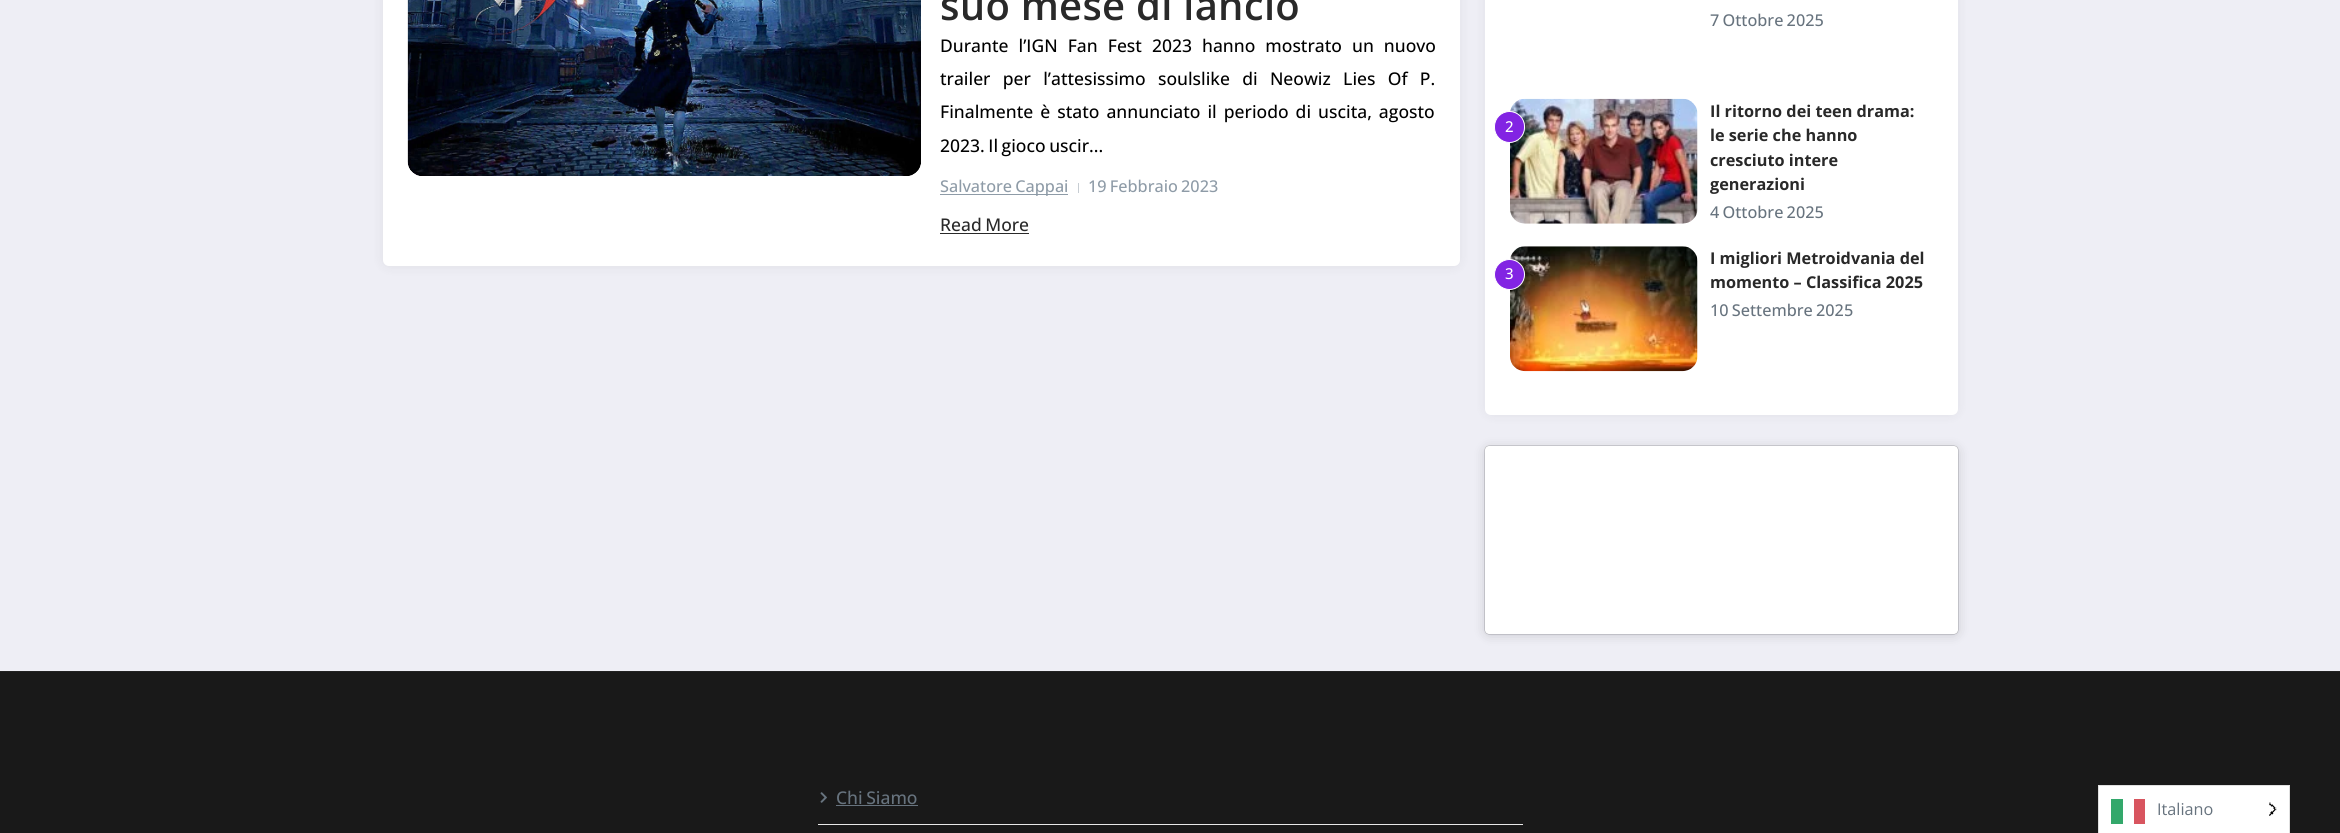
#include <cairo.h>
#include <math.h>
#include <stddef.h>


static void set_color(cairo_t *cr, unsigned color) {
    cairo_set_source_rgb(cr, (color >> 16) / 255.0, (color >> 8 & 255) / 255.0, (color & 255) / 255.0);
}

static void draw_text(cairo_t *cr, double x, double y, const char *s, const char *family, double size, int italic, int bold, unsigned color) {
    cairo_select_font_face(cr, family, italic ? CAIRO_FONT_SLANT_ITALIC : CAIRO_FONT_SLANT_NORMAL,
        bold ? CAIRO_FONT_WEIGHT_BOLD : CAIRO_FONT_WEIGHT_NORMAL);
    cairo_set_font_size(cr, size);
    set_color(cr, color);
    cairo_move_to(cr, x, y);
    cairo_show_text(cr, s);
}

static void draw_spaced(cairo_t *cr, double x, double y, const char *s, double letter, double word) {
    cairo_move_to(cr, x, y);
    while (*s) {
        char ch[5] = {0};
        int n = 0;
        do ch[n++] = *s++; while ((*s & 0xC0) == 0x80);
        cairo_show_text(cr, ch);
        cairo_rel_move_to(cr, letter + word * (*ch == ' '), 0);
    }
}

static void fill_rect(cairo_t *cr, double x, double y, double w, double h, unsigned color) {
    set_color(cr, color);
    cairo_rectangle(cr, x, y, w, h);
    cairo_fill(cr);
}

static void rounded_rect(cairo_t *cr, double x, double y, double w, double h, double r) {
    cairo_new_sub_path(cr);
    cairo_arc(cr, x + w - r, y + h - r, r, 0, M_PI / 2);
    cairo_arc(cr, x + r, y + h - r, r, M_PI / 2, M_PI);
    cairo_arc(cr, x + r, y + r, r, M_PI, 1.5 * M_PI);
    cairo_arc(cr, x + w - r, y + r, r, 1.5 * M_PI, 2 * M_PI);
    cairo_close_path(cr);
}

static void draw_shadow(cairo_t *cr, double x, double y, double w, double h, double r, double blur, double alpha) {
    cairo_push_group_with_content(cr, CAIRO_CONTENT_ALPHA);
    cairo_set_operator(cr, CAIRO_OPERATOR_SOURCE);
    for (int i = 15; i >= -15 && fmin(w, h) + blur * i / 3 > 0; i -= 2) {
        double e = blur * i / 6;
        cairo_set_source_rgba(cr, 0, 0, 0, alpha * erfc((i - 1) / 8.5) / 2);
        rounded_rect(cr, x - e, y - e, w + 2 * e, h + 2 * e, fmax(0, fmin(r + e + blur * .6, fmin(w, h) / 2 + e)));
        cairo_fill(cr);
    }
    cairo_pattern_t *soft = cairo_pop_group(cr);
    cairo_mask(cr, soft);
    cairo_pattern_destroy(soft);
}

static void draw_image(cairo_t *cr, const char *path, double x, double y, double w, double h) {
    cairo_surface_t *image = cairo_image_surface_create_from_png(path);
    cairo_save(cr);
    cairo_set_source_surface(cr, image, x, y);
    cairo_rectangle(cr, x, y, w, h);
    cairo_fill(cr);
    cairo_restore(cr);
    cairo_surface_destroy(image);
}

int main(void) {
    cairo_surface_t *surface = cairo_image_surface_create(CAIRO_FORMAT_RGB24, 2340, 833);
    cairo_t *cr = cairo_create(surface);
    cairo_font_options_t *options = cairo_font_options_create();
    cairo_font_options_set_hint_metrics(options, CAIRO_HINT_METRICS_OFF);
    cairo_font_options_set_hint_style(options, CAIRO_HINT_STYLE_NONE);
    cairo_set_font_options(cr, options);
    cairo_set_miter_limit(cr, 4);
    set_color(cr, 0xEEEEF5);
    cairo_paint(cr);
    set_color(cr, 0x000000);
    draw_shadow(cr, 381, -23, 1080, 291, 8, 5, 0.05);
    set_color(cr, 0xFFFFFF);
    rounded_rect(cr, 383, -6, 1077, 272, 6);
    cairo_fill(cr);
    draw_image(cr, "assets/img1.png", 407, 0, 514, 176);
    cairo_select_font_face(cr, "Open Sans SemiBold", CAIRO_FONT_SLANT_NORMAL, CAIRO_FONT_WEIGHT_NORMAL);
    cairo_set_font_size(cr, 40);
    set_color(cr, 0x292929);
    draw_spaced(cr, 940, 20, "suo mese di lancio", 0.25, 0);
    cairo_select_font_face(cr, "Open Sans Medium", CAIRO_FONT_SLANT_NORMAL, CAIRO_FONT_WEIGHT_NORMAL);
    cairo_set_font_size(cr, 17.5);
    set_color(cr, 0x000000);
    draw_spaced(cr, 940, 52, "Durante l’IGN Fan Fest 2023 hanno mostrato un nuovo", 0, 5.5);
    draw_spaced(cr, 940, 85, "trailer per l’attesissimo soulslike di Neowiz Lies Of P.", 0, 7.75);
    draw_spaced(cr, 940, 118, "Finalmente è stato annunciato il periodo di uscita, agosto", 0, 2.5);
    draw_spaced(cr, 940, 152, "2023. Il gioco uscir...", 0, -1);
    fill_rect(cr, 940, 194, 128, 1, 0x8E9BA7);
    cairo_set_font_size(cr, 16.25);
    draw_spaced(cr, 940, 192, "Salvatore Cappai", 0, -1);
    fill_rect(cr, 1078, 183, 1, 10, 0xC7CDD3);
    set_color(cr, 0x8E9BA7);
    draw_spaced(cr, 1088, 192, "19 Febbraio 2023", 0, -1);
    cairo_set_font_size(cr, 17.5);
    set_color(cr, 0x292929);
    draw_spaced(cr, 940, 231, "Read More", 0, -1);
    fill_rect(cr, 940, 233, 89, 1, 0x292929);
    set_color(cr, 0x000000);
    draw_shadow(cr, 1484, -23, 475, 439, 8, 5, 0.05);
    set_color(cr, 0xFFFFFF);
    rounded_rect(cr, 1485, -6, 473, 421, 6);
    cairo_fill(cr);
    cairo_set_font_size(cr, 16.25);
    set_color(cr, 0x67737E);
    draw_spaced(cr, 1710, 26, "7 Ottobre 2025", 0, -1);
    draw_image(cr, "assets/img2.png", 1510, 98, 188, 126);
    set_color(cr, 0x8224E3);
    rounded_rect(cr, 1494.5, 111.5, 30, 31, 15);
    cairo_fill_preserve(cr);
    set_color(cr, 0xFFFFFF);
    cairo_set_line_width(cr, 1);
    cairo_stroke(cr);
    draw_text(cr, 1505, 132, "2", "Open Sans Medium", 15, 0, 0, 0xFFFFFF);
    draw_text(cr, 1710, 117, "Il ritorno dei teen drama:", "Open Sans", 16.25, 0, 1, 0x292929);
    draw_text(cr, 1710, 141, "le serie che hanno", "Open Sans", 16.25, 0, 1, 0x292929);
    draw_text(cr, 1710, 166, "cresciuto intere", "Open Sans", 16.25, 0, 1, 0x292929);
    draw_text(cr, 1710, 190, "generazioni", "Open Sans", 16.25, 0, 1, 0x292929);
    cairo_select_font_face(cr, "Open Sans Medium", CAIRO_FONT_SLANT_NORMAL, CAIRO_FONT_WEIGHT_NORMAL);
    set_color(cr, 0x67737E);
    draw_spaced(cr, 1710, 218, "4 Ottobre 2025", 0, -1);
    draw_image(cr, "assets/img3.png", 1510, 246, 188, 126);
    set_color(cr, 0x8224E3);
    cairo_arc(cr, 1509.5, 274.5, 15, 0, 2 * M_PI);
    cairo_fill_preserve(cr);
    set_color(cr, 0xFFFFFF);
    cairo_stroke(cr);
    draw_text(cr, 1505, 279, "3", "Open Sans Medium", 15, 0, 0, 0xFFFFFF);
    draw_text(cr, 1710, 264, "I migliori Metroidvania del", "Open Sans", 16.25, 0, 1, 0x292929);
    draw_text(cr, 1710, 288, "momento – Classifica 2025", "Open Sans", 16.25, 0, 1, 0x292929);
    cairo_select_font_face(cr, "Open Sans Medium", CAIRO_FONT_SLANT_NORMAL, CAIRO_FONT_WEIGHT_NORMAL);
    set_color(cr, 0x67737E);
    draw_spaced(cr, 1710, 316, "10 Settembre 2025", 0, -1);
    set_color(cr, 0x000000);
    draw_shadow(cr, 1485, 448, 473, 187, 4, 6, 0.15);
    draw_shadow(cr, 1485, 446, 473, 188, 4, 0.5, 0.5);
    set_color(cr, 0xFFFFFF);
    rounded_rect(cr, 1485, 446, 473, 188, 4);
    cairo_fill(cr);
    fill_rect(cr, 0, 672, 2340, 161, 0x191919);
    fill_rect(cr, 0, 671, 2340, 1, 0x222222);
    fill_rect(cr, 818, 824, 705, 1, 0xE8E8E8);
    draw_image(cr, "assets/img4.png", 820, 792, 7, 11);
    cairo_set_font_size(cr, 17.5);
    set_color(cr, 0x67737E);
    draw_spaced(cr, 836, 804, "Chi Siamo", 0, -1);
    fill_rect(cr, 836, 805, 82, 1, 0x67737E);
    set_color(cr, 0xFFFFFF);
    cairo_rectangle(cr, 2098.5, 785.5, 191, 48);
    cairo_fill_preserve(cr);
    set_color(cr, 0xE0E0E0);
    cairo_stroke(cr);
    fill_rect(cr, 2111, 799, 12, 25, 0x33A86B);
    fill_rect(cr, 2134, 799, 11, 25, 0xD8555F);
    draw_text(cr, 2157, 815, "Italiano", "Open Sans", 16.25, 0, 0, 0x67737E);
    draw_image(cr, "assets/img5.png", 2269, 802, 8, 14);
    cairo_surface_write_to_png(surface, "output.png");
    cairo_font_options_destroy(options);
    cairo_destroy(cr);
    cairo_surface_destroy(surface);
    return 0;
}
